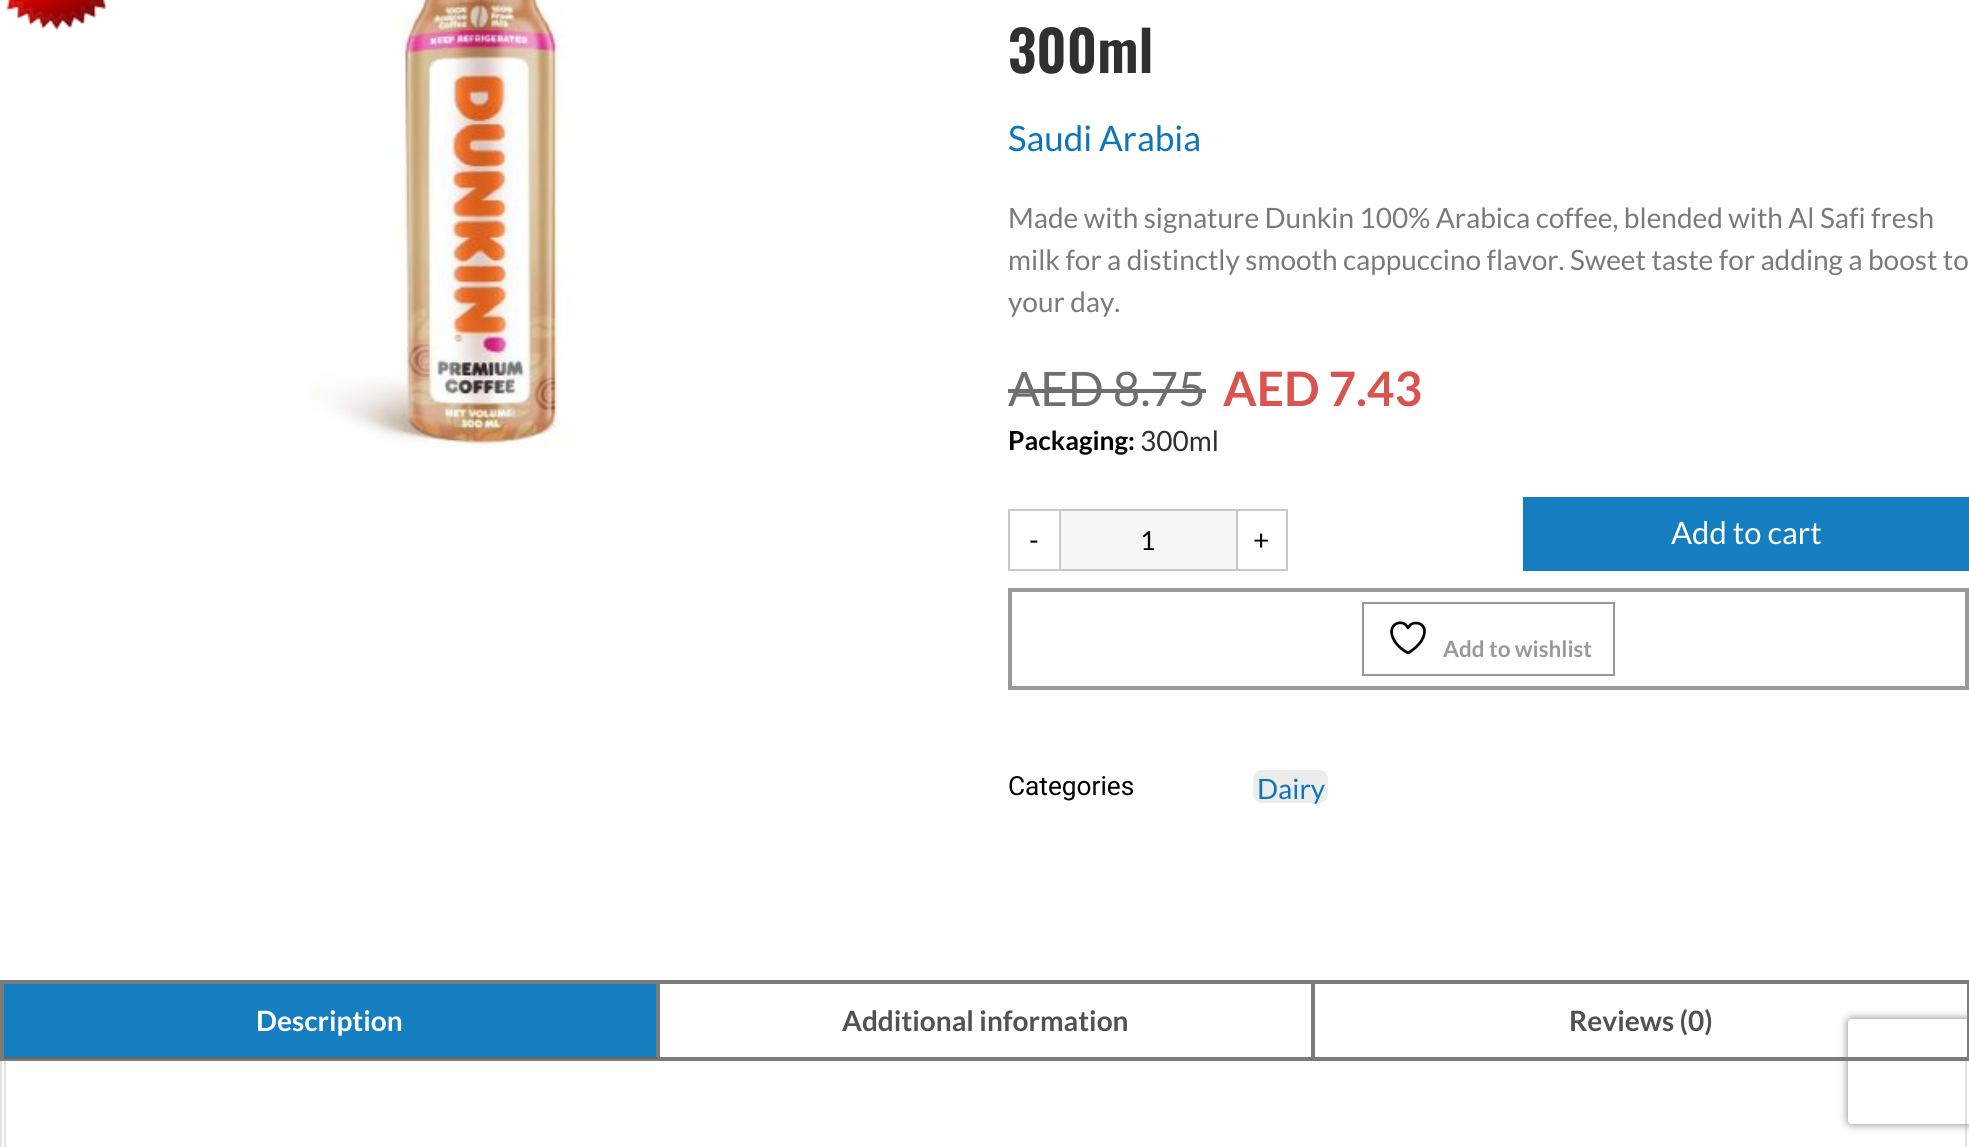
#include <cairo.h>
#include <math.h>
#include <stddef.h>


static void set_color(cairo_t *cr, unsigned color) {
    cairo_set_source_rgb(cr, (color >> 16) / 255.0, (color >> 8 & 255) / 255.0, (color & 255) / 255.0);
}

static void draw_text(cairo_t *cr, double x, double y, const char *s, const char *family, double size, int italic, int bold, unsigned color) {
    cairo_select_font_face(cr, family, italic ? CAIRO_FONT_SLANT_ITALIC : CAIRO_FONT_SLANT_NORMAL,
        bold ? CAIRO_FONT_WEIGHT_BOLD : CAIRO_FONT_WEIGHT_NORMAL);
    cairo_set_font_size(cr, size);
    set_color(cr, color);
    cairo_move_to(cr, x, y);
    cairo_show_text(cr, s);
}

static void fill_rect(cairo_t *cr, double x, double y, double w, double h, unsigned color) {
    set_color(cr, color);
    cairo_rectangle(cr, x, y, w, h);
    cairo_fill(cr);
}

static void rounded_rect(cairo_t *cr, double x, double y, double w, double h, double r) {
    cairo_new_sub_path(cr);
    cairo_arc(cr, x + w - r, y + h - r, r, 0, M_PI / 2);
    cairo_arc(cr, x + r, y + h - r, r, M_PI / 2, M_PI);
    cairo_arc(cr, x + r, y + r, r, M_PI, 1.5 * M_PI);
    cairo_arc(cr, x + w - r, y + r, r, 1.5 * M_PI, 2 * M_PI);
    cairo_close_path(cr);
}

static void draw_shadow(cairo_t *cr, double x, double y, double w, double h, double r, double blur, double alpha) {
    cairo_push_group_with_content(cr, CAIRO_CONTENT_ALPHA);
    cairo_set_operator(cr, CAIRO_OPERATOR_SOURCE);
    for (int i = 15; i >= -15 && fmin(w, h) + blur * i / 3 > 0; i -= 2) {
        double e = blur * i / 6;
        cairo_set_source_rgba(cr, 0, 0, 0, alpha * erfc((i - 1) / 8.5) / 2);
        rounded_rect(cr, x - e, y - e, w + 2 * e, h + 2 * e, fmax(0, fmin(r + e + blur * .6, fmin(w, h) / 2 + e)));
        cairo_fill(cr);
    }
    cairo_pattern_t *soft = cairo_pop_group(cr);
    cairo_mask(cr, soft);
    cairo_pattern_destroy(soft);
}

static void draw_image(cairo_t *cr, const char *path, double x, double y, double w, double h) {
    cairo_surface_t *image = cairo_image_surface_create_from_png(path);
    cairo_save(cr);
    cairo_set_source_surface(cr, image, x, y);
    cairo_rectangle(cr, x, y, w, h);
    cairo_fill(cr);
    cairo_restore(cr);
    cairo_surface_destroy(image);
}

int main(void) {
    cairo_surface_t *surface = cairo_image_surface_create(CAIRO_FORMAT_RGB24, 1969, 1147);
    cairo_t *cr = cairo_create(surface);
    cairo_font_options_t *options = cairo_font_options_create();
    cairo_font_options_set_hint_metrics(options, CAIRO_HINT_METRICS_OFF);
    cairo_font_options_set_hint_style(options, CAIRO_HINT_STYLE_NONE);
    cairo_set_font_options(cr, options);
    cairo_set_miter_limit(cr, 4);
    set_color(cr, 0xFFFFFF);
    cairo_paint(cr);
    draw_image(cr, "assets/img1.png", 0, 0, 107, 30);
    draw_image(cr, "assets/img2.png", 311, 0, 260, 448);
    draw_text(cr, 1008, 73, "300ml", "Oswald SemiBold", 56, 0, 0, 0x303030);
    draw_text(cr, 1008, 151, "Saudi Arabia", "Lato", 35, 0, 0, 0x0E75BA);
    draw_text(cr, 1008, 228, "Made with signature Dunkin 100% Arabica coffee, blended with Al Safi fresh", "Lato", 28, 0, 0, 0x7A7A7A);
    draw_text(cr, 1008, 270, "milk for a distinctly smooth cappuccino flavor. Sweet taste for adding a boost to", "Lato", 28, 0, 0, 0x7A7A7A);
    draw_text(cr, 1008, 312, "your day.", "Lato", 28, 0, 0, 0x7A7A7A);
    draw_text(cr, 1008, 406, "AED 8.75", "Lato", 47.5, 0, 0, 0x6E6E6E);
    fill_rect(cr, 1008, 389, 198, 4, 0x6E6E6E);
    draw_text(cr, 1223, 406, "AED 7.43", "Lato", 47.5, 0, 1, 0xD9534F);
    draw_text(cr, 1008, 450, "Packaging:", "Lato", 26.25, 0, 1, 0x000000);
    draw_text(cr, 1140, 451, "300ml", "Lato", 28, 0, 0, 0x303030);
    cairo_rectangle(cr, 1009, 510, 51, 60);
    set_color(cr, 0xCAC9C9);
    cairo_stroke(cr);
    draw_text(cr, 1029, 550, "-", "Lato", 28, 0, 0, 0x000000);
    fill_rect(cr, 1061, 511, 175, 58, 0xF7F7F7);
    fill_rect(cr, 1061, 509, 175, 2, 0xCAC9C9);
    fill_rect(cr, 1061, 569, 175, 2, 0xCAC9C9);
    draw_text(cr, 1140, 550, "1", "Lato", 26.25, 0, 0, 0x000000);
    cairo_rectangle(cr, 1237, 510, 50, 60);
    set_color(cr, 0xCAC9C9);
    cairo_stroke(cr);
    draw_text(cr, 1253, 550, "+", "Lato", 28, 0, 0, 0x000000);
    fill_rect(cr, 1523, 497, 446, 74, 0x157EC0);
    draw_text(cr, 1671, 544, "Add to cart", "Lato", 31, 0, 0, 0xFFFFFF);
    cairo_rectangle(cr, 1010, 590, 957, 98);
    set_color(cr, 0x999999);
    cairo_set_line_width(cr, 4);
    cairo_stroke(cr);
    cairo_rectangle(cr, 1363, 603, 251, 72);
    cairo_set_line_width(cr, 2);
    cairo_stroke(cr);
    cairo_new_path(cr);
    cairo_move_to(cr, 1424.5, 631);
    cairo_curve_to(cr, 1424.5, 622, 1411.5, 620, 1408, 628);
    cairo_curve_to(cr, 1403.5, 617.5, 1385, 623.5, 1394, 640);
    cairo_curve_to(cr, 1397, 645.5, 1402.5, 650, 1408, 653);
    cairo_curve_to(cr, 1408, 653, 1424.5, 644, 1424.5, 631);
    cairo_close_path(cr);
    set_color(cr, 0x000000);
    cairo_set_line_width(cr, 2.7);
    cairo_set_line_cap(cr, CAIRO_LINE_CAP_ROUND);
    cairo_set_line_join(cr, CAIRO_LINE_JOIN_ROUND);
    cairo_stroke(cr);
    draw_text(cr, 1443, 657, "Add to wishlist", "Lato", 22.5, 0, 1, 0x999999);
    draw_text(cr, 1008, 795, "Categories", "Roboto", 26.25, 0, 0, 0x000000);
    set_color(cr, 0xECECEC);
    rounded_rect(cr, 1253, 770, 75, 33, 9);
    cairo_fill(cr);
    draw_text(cr, 1257, 799, "Dairy", "Lato", 28, 0, 0, 0x0E75BA);
    cairo_rectangle(cr, 1, 981, 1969, 79);
    set_color(cr, 0x7C7C7C);
    cairo_set_line_width(cr, 2);
    cairo_set_line_cap(cr, CAIRO_LINE_CAP_BUTT);
    cairo_set_line_join(cr, CAIRO_LINE_JOIN_MITER);
    cairo_stroke(cr);
    fill_rect(cr, 4, 984, 652, 73, 0x157EC0);
    fill_rect(cr, 2, 982, 656, 2, 0x7C7C7C);
    fill_rect(cr, 656, 982, 2, 77, 0x7C7C7C);
    fill_rect(cr, 2, 1057, 656, 2, 0x666666);
    fill_rect(cr, 2, 982, 2, 77, 0x7C7C7C);
    draw_text(cr, 256, 1031, "Description", "Lato", 28, 0, 1, 0xFFFFFF);
    cairo_rectangle(cr, 659, 983, 653, 75);
    set_color(cr, 0x7C7C7C);
    cairo_stroke(cr);
    draw_text(cr, 842, 1031, "Additional information", "Lato", 28, 0, 1, 0x515151);
    cairo_rectangle(cr, 1314, 983, 654, 75);
    set_color(cr, 0x7C7C7C);
    cairo_stroke(cr);
    draw_text(cr, 1569, 1031, "Reviews (0)", "Lato", 28, 0, 1, 0x515151);
    fill_rect(cr, 1965, 1061, 2, 86, 0xE1E1E1);
    fill_rect(cr, 0, 1061, 2, 86, 0xE1E1E1);
    fill_rect(cr, 4, 1061, 2, 86, 0xE1E1E1);
    cairo_save(cr);
    cairo_set_fill_rule(cr, CAIRO_FILL_RULE_EVEN_ODD);
    cairo_new_path(cr);
    cairo_move_to(cr, 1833, 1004);
    cairo_line_to(cr, 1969, 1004);
    cairo_line_to(cr, 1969, 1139);
    cairo_line_to(cr, 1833, 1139);
    cairo_close_path(cr);
    cairo_move_to(cr, 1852, 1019);
    cairo_line_to(cr, 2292, 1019);
    cairo_curve_to(cr, 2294, 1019, 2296, 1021, 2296, 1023);
    cairo_line_to(cr, 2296, 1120);
    cairo_curve_to(cr, 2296, 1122, 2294, 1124, 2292, 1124);
    cairo_line_to(cr, 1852, 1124);
    cairo_curve_to(cr, 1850, 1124, 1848, 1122, 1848, 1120);
    cairo_line_to(cr, 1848, 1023);
    cairo_curve_to(cr, 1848, 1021, 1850, 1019, 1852, 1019);
    cairo_close_path(cr);
    cairo_clip(cr);
    set_color(cr, 0x808080);
    draw_shadow(cr, 1848, 1019, 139, 105, 4, 4.5, 1);
    cairo_restore(cr);
    cairo_surface_write_to_png(surface, "output.png");
    cairo_font_options_destroy(options);
    cairo_destroy(cr);
    cairo_surface_destroy(surface);
    return 0;
}
